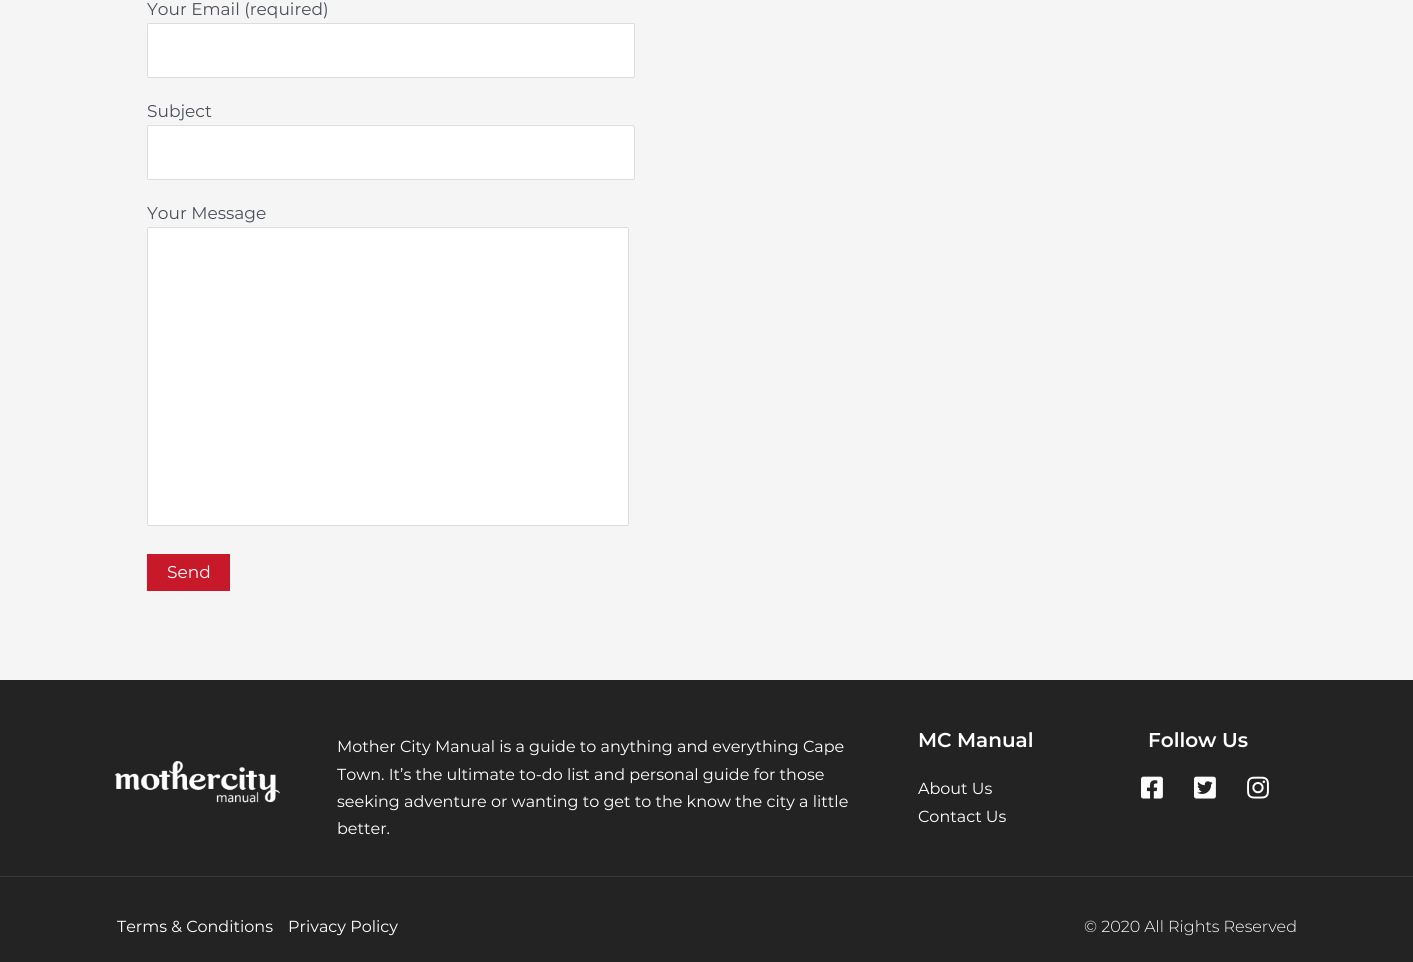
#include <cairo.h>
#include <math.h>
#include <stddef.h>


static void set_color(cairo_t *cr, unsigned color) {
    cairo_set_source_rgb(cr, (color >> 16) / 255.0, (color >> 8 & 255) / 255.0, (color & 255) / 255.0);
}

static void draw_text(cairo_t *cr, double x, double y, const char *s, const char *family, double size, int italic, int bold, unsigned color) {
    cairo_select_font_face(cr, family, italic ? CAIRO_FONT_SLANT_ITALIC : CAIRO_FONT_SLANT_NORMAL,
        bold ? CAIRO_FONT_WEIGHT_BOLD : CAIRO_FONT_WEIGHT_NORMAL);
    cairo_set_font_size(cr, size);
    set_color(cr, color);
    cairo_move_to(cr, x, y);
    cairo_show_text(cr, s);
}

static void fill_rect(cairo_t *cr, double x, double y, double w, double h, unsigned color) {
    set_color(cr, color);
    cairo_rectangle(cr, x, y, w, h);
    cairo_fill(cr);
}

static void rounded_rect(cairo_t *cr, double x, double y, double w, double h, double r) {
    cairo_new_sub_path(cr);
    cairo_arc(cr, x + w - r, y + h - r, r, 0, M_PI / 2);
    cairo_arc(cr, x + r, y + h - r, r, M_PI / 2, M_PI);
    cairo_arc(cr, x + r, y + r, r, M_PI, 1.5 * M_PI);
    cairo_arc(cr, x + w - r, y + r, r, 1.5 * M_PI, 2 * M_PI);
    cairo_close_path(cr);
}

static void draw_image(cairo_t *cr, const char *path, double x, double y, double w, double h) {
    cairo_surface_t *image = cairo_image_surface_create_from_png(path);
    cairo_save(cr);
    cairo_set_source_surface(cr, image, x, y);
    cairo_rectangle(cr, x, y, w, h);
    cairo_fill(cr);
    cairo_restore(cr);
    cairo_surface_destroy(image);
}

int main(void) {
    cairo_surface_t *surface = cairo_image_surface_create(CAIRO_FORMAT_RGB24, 1413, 962);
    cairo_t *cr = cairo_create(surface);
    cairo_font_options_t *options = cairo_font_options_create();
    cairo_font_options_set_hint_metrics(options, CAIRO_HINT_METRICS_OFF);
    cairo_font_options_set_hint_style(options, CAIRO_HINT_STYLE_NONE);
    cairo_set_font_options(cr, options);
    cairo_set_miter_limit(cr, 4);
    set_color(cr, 0xF5F5F5);
    cairo_paint(cr);
    draw_text(cr, 147, 15, "Your Email (required)", "Montserrat", 17, 0, 0, 0x4B4F58);
    set_color(cr, 0xFFFFFF);
    rounded_rect(cr, 147.5, 23.5, 487, 54, 1.5);
    cairo_fill_preserve(cr);
    set_color(cr, 0xDDDDDD);
    cairo_set_line_width(cr, 1);
    cairo_stroke(cr);
    draw_text(cr, 147, 117, "Subject", "Montserrat", 17, 0, 0, 0x4B4F58);
    set_color(cr, 0xFFFFFF);
    rounded_rect(cr, 147.5, 125.5, 487, 54, 1.5);
    cairo_fill_preserve(cr);
    set_color(cr, 0xDDDDDD);
    cairo_stroke(cr);
    draw_text(cr, 147, 219, "Your Message", "Montserrat", 17, 0, 0, 0x4B4F58);
    set_color(cr, 0xFFFFFF);
    rounded_rect(cr, 147.5, 227.5, 481, 298, 1.5);
    cairo_fill_preserve(cr);
    set_color(cr, 0xDDDDDD);
    cairo_stroke(cr);
    fill_rect(cr, 147, 554, 83, 37, 0xC8192A);
    draw_text(cr, 167, 578, "Send", "Montserrat", 17, 0, 0, 0xFFFFFF);
    fill_rect(cr, 0, 680, 1413, 282, 0x232323);
    draw_image(cr, "assets/img1.png", 114, 761, 166, 42);
    draw_text(cr, 337, 752, "Mother City Manual is a guide to anything and everything Cape", "Montserrat", 16, 0, 0, 0xFFFFFF);
    draw_text(cr, 337, 780, "Town. It’s the ultimate to-do list and personal guide for those", "Montserrat", 16, 0, 0, 0xFFFFFF);
    draw_text(cr, 337, 807, "seeking adventure or wanting to get to the know the city a little", "Montserrat", 16, 0, 0, 0xFFFFFF);
    draw_text(cr, 337, 834, "better.", "Montserrat", 16, 0, 0, 0xFFFFFF);
    draw_text(cr, 918, 747, "MC Manual", "Montserrat SemiBold", 20, 0, 0, 0xFFFFFF);
    draw_text(cr, 918, 794, "About Us", "Montserrat", 16, 0, 0, 0xFFFFFF);
    draw_text(cr, 918, 822, "Contact Us", "Montserrat", 16, 0, 0, 0xFFFFFF);
    draw_text(cr, 1148, 747, "Follow Us", "Montserrat SemiBold", 20, 0, 0, 0xFFFFFF);
    draw_image(cr, "assets/img2.png", 1141, 776, 22, 23);
    draw_image(cr, "assets/img3.png", 1194, 776, 22, 23);
    draw_image(cr, "assets/img4.png", 1247, 776, 22, 23);
    fill_rect(cr, 0, 876, 1413, 1, 0x393939);
    draw_text(cr, 117, 932, "Terms & Conditions", "Montserrat", 16, 0, 0, 0xFFFFFF);
    draw_text(cr, 288, 932, "Privacy Policy", "Montserrat", 16, 0, 0, 0xFFFFFF);
    draw_text(cr, 1084, 932, "© 2020 All Rights Reserved", "Montserrat Light", 16, 0, 0, 0xFFFFFF);
    cairo_surface_write_to_png(surface, "output.png");
    cairo_font_options_destroy(options);
    cairo_destroy(cr);
    cairo_surface_destroy(surface);
    return 0;
}
